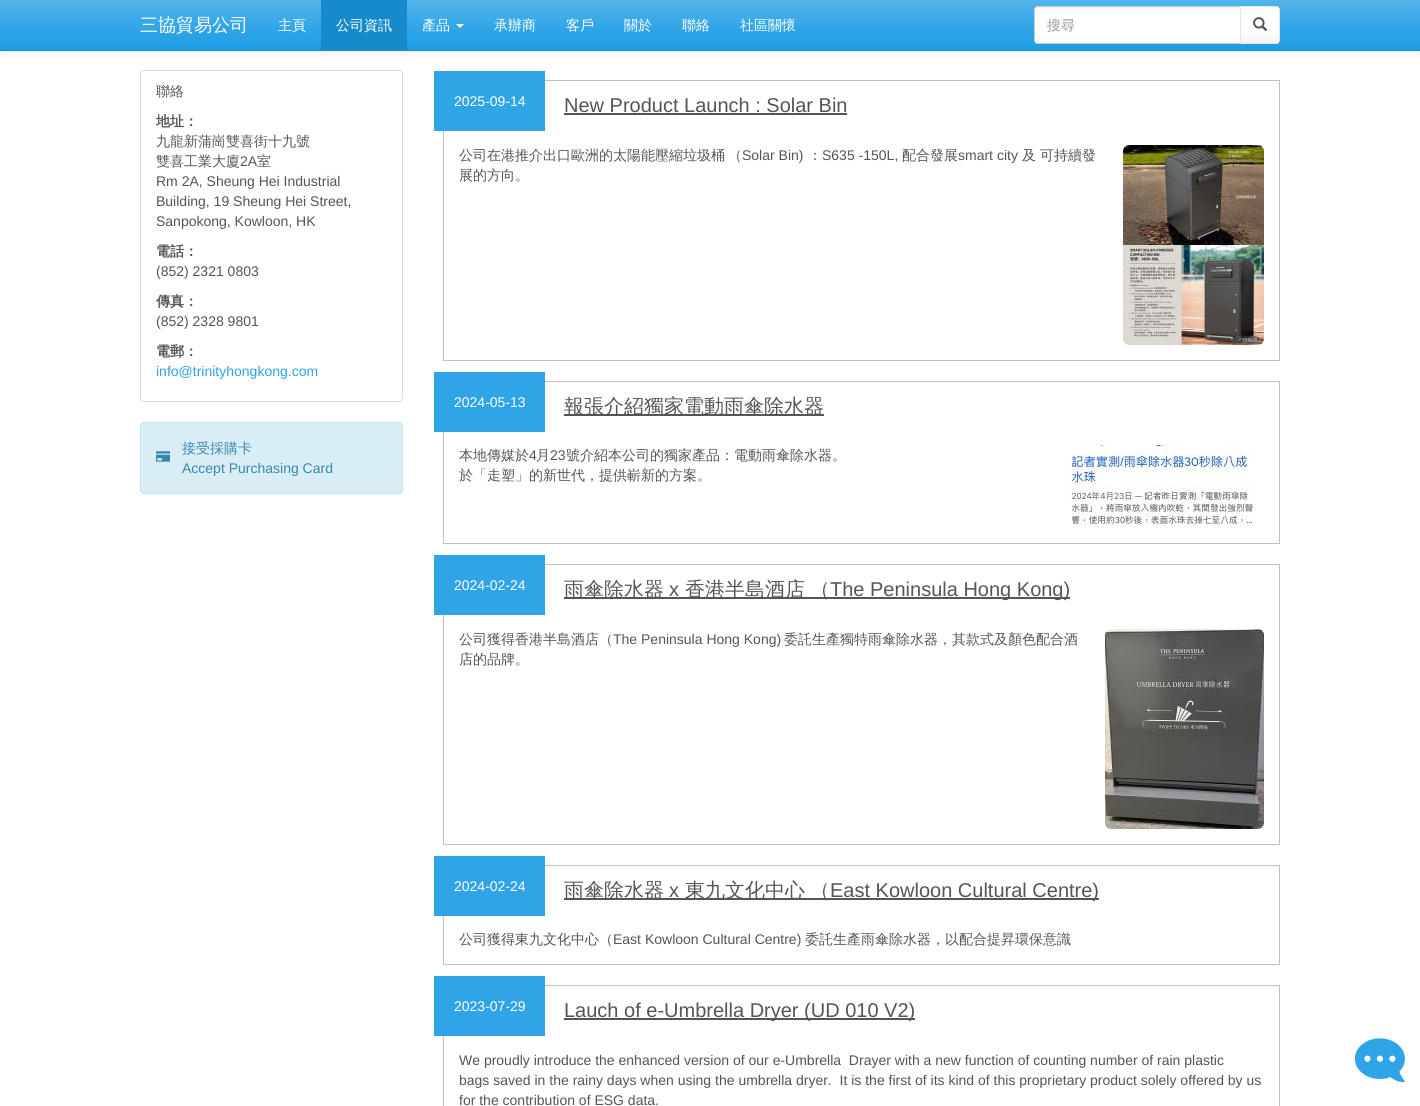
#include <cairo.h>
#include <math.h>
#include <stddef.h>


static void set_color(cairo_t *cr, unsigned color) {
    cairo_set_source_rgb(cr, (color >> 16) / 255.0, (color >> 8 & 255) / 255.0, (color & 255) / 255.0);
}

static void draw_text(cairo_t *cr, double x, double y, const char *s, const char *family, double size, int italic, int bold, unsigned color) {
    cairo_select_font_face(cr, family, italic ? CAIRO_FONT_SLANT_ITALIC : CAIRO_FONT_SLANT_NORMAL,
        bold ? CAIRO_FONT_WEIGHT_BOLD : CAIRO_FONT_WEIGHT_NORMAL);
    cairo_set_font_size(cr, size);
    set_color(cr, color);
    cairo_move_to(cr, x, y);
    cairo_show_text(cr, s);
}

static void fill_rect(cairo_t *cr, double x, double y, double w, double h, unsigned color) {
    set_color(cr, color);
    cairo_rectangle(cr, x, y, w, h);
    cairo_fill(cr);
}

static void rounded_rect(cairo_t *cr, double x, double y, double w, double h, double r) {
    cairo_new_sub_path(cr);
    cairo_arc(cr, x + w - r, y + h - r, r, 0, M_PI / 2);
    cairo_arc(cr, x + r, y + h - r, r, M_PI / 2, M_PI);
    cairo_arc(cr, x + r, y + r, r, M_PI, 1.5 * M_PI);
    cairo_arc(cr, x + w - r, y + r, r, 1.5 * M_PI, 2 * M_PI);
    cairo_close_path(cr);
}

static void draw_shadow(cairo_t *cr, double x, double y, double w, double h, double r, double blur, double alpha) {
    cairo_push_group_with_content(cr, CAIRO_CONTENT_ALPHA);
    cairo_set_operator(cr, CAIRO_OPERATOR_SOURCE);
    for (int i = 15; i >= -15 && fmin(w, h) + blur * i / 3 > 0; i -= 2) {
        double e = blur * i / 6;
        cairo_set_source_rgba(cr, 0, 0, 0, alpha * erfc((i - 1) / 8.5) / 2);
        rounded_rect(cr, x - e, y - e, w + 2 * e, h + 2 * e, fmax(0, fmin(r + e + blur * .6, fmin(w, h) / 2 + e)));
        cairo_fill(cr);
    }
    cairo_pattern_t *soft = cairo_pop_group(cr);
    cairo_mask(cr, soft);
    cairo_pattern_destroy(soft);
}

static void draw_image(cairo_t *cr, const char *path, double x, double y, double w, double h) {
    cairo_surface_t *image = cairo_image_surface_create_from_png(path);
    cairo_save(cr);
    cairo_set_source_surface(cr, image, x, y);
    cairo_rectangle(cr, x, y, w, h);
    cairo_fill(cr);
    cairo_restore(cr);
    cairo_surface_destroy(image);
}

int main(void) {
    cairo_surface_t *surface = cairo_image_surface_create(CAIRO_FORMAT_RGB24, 1420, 1106);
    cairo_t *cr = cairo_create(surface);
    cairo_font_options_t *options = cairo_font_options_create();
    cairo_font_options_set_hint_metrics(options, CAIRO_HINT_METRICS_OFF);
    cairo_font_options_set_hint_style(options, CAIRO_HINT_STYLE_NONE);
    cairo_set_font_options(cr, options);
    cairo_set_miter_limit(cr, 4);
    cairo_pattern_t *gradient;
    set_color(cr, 0xFFFFFF);
    cairo_paint(cr);
    set_color(cr, 0x000000);
    draw_shadow(cr, 0, 1, 1420, 51, 0, 5, 0.1);
    gradient = cairo_pattern_create_linear(710, 0, 710, 50);
    cairo_pattern_add_color_stop_rgba(gradient, 0, 0.329, 0.706, 0.922, 1);
    cairo_pattern_add_color_stop_rgba(gradient, 0.6, 0.184, 0.643, 0.906, 1);
    cairo_pattern_add_color_stop_rgba(gradient, 1, 0.114, 0.612, 0.898, 1);
    cairo_set_source(cr, gradient);
    cairo_pattern_destroy(gradient);
    cairo_rectangle(cr, 0, 0, 1420, 50);
    cairo_fill(cr);
    fill_rect(cr, 0, 50, 1420, 1, 0x178ACC);
    draw_text(cr, 140, 31, "三協貿易公司", "WenQuanYi Zen Hei Medium", 18, 0, 0, 0xFFFFFF);
    draw_text(cr, 278, 30, "主頁", "WenQuanYi Zen Hei Medium", 14, 0, 0, 0xFFFFFF);
    fill_rect(cr, 321, 0, 86, 50, 0x178ACC);
    draw_text(cr, 336, 30, "公司資訊", "WenQuanYi Zen Hei Medium", 14, 0, 0, 0xFFFFFF);
    draw_text(cr, 422, 30, "產品", "WenQuanYi Zen Hei Medium", 14, 0, 0, 0xFFFFFF);
    cairo_new_path(cr);
    cairo_move_to(cr, 456, 24);
    cairo_line_to(cr, 464, 24);
    cairo_line_to(cr, 460, 28);
    cairo_close_path(cr);
    cairo_fill(cr);
    draw_text(cr, 494, 30, "承辦商", "WenQuanYi Zen Hei Medium", 14, 0, 0, 0xFFFFFF);
    draw_text(cr, 566, 30, "客戶", "WenQuanYi Zen Hei Medium", 14, 0, 0, 0xFFFFFF);
    draw_text(cr, 624, 30, "關於", "WenQuanYi Zen Hei Medium", 14, 0, 0, 0xFFFFFF);
    draw_text(cr, 682, 30, "聯絡", "WenQuanYi Zen Hei Medium", 14, 0, 0, 0xFFFFFF);
    draw_text(cr, 740, 30, "社區關懷", "WenQuanYi Zen Hei Medium", 14, 0, 0, 0xFFFFFF);
    cairo_new_path(cr);
    cairo_move_to(cr, 1038, 6);
    cairo_line_to(cr, 1241, 6);
    cairo_line_to(cr, 1241, 44);
    cairo_line_to(cr, 1038, 44);
    cairo_curve_to(cr, 1036, 44, 1034, 42, 1034, 40);
    cairo_line_to(cr, 1034, 10);
    cairo_curve_to(cr, 1034, 8, 1036, 6, 1038, 6);
    cairo_close_path(cr);
    cairo_fill(cr);
    set_color(cr, 0xECECEC);
    cairo_new_path(cr);
    cairo_move_to(cr, 1038, 8);
    cairo_line_to(cr, 1240, 8);
    cairo_line_to(cr, 1240, 7);
    cairo_line_to(cr, 1037, 7);
    cairo_curve_to(cr, 1035, 8, 1035, 9, 1035, 11);
    cairo_curve_to(cr, 1035, 9, 1036, 8, 1038, 8);
    cairo_close_path(cr);
    cairo_fill(cr);
    cairo_new_path(cr);
    cairo_move_to(cr, 1038, 6.5);
    cairo_line_to(cr, 1240.5, 6.5);
    cairo_line_to(cr, 1240.5, 43.5);
    cairo_line_to(cr, 1038, 43.5);
    cairo_curve_to(cr, 1036, 43.5, 1034.5, 42, 1034.5, 40);
    cairo_line_to(cr, 1034.5, 10);
    cairo_curve_to(cr, 1034.5, 8, 1036, 6.5, 1038, 6.5);
    cairo_close_path(cr);
    set_color(cr, 0xCCCCCC);
    cairo_set_line_width(cr, 1);
    cairo_stroke(cr);
    draw_text(cr, 1047, 30, "搜尋", "WenQuanYi Zen Hei Medium", 14, 0, 0, 0x999999);
    set_color(cr, 0xFFFFFF);
    cairo_new_path(cr);
    cairo_move_to(cr, 1240, 6);
    cairo_line_to(cr, 1276, 6);
    cairo_curve_to(cr, 1278, 6, 1280, 8, 1280, 10);
    cairo_line_to(cr, 1280, 40);
    cairo_curve_to(cr, 1280, 42, 1278, 44, 1276, 44);
    cairo_line_to(cr, 1240, 44);
    cairo_close_path(cr);
    cairo_fill(cr);
    gradient = cairo_pattern_create_linear(1260, 7, 1260, 43);
    cairo_pattern_add_color_stop_rgba(gradient, 0, 1, 1, 1, 1);
    cairo_pattern_add_color_stop_rgba(gradient, 0.6, 1, 1, 1, 1);
    cairo_pattern_add_color_stop_rgba(gradient, 1, 0.961, 0.961, 0.961, 1);
    cairo_set_source(cr, gradient);
    cairo_pattern_destroy(gradient);
    cairo_rectangle(cr, 1241, 7, 38, 36);
    cairo_fill(cr);
    cairo_set_source_rgba(cr, 0, 0, 0, 0.1);
    cairo_new_path(cr);
    cairo_move_to(cr, 1240, 6);
    cairo_line_to(cr, 1241, 7);
    cairo_line_to(cr, 1276, 7);
    cairo_curve_to(cr, 1277, 7, 1278, 7, 1278, 8);
    cairo_line_to(cr, 1279, 7);
    cairo_curve_to(cr, 1278, 6.5, 1277, 6, 1276, 6);
    cairo_close_path(cr);
    cairo_fill(cr);
    cairo_new_path(cr);
    cairo_move_to(cr, 1280, 40);
    cairo_line_to(cr, 1280, 10);
    cairo_curve_to(cr, 1280, 9, 1279.5, 8, 1279, 7);
    cairo_line_to(cr, 1278, 8);
    cairo_curve_to(cr, 1279, 8, 1279, 9, 1279, 10);
    cairo_line_to(cr, 1279, 40);
    cairo_curve_to(cr, 1279, 41, 1279, 42, 1278, 42);
    cairo_line_to(cr, 1279, 43);
    cairo_curve_to(cr, 1279.5, 42, 1280, 41, 1280, 40);
    cairo_close_path(cr);
    cairo_fill(cr);
    set_color(cr, 0xE6E6E6);
    cairo_new_path(cr);
    cairo_move_to(cr, 1276, 44);
    cairo_curve_to(cr, 1277, 44, 1278, 43.5, 1279, 43);
    cairo_line_to(cr, 1278, 42);
    cairo_curve_to(cr, 1278, 43, 1277, 43, 1276, 43);
    cairo_line_to(cr, 1241, 43);
    cairo_line_to(cr, 1240, 44);
    cairo_close_path(cr);
    cairo_fill(cr);
    cairo_set_source_rgba(cr, 0, 0, 0, 0.1);
    cairo_new_path(cr);
    cairo_move_to(cr, 1240, 6);
    cairo_line_to(cr, 1240, 44);
    cairo_line_to(cr, 1241, 43);
    cairo_line_to(cr, 1241, 7);
    cairo_close_path(cr);
    cairo_fill(cr);
    draw_image(cr, "assets/img1.png", 1253, 17, 15, 14);
    rounded_rect(cr, 140.5, 70.5, 262, 331, 3.5);
    set_color(cr, 0xDDDDDD);
    cairo_stroke(cr);
    draw_text(cr, 156, 96, "聯絡", "WenQuanYi Zen Hei Medium", 14, 0, 0, 0x555555);
    draw_text(cr, 156, 126, "地址：", "WenQuanYi Zen Hei", 14, 0, 1, 0x555555);
    draw_text(cr, 156, 146, "九龍新蒲崗雙喜街十九號", "WenQuanYi Zen Hei Medium", 14, 0, 0, 0x555555);
    draw_text(cr, 156, 166, "雙喜工業大廈", "WenQuanYi Zen Hei Medium", 14, 0, 0, 0x555555);
    draw_text(cr, 240, 166, "2A", "Liberation Sans", 14, 0, 0, 0x555555);
    draw_text(cr, 257, 166, "室", "WenQuanYi Zen Hei Medium", 14, 0, 0, 0x555555);
    draw_text(cr, 156, 186, "Rm 2A, Sheung Hei Industrial", "Liberation Sans", 14, 0, 0, 0x555555);
    draw_text(cr, 156, 206, "Building, 19 Sheung Hei Street,", "Liberation Sans", 14, 0, 0, 0x555555);
    draw_text(cr, 156, 226, "Sanpokong, Kowloon, HK", "Liberation Sans", 14, 0, 0, 0x555555);
    draw_text(cr, 156, 256, "電話：", "WenQuanYi Zen Hei", 14, 0, 1, 0x555555);
    draw_text(cr, 156, 276, "(852) 2321 0803", "Liberation Sans", 14, 0, 0, 0x555555);
    draw_text(cr, 156, 306, "傳真：", "WenQuanYi Zen Hei", 14, 0, 1, 0x555555);
    draw_text(cr, 156, 326, "(852) 2328 9801", "Liberation Sans", 14, 0, 0, 0x555555);
    draw_text(cr, 156, 356, "電郵：", "WenQuanYi Zen Hei", 14, 0, 1, 0x555555);
    draw_text(cr, 156, 376, "info@trinityhongkong.com", "Liberation Sans", 14, 0, 0, 0x2FA4E7);
    set_color(cr, 0xD9EDF7);
    rounded_rect(cr, 140.5, 422.5, 262, 71, 3.5);
    cairo_fill_preserve(cr);
    set_color(cr, 0xBCE8F1);
    cairo_stroke(cr);
    draw_text(cr, 182, 453, "接受採購卡", "WenQuanYi Zen Hei Medium", 14, 0, 0, 0x3A87AD);
    draw_image(cr, "assets/img2.png", 156, 451, 14, 11);
    draw_text(cr, 182, 473, "Accept Purchasing Card", "Liberation Sans", 14, 0, 0, 0x3A87AD);
    cairo_rectangle(cr, 443.5, 80.5, 836, 280);
    set_color(cr, 0xC0C0C0);
    cairo_stroke(cr);
    fill_rect(cr, 434, 71, 111, 60, 0x2FA4E7);
    draw_text(cr, 454, 106, "2025-09-14", "Liberation Sans", 14, 0, 0, 0xFFFFFF);
    draw_text(cr, 564, 112, "New Product Launch : Solar Bin", "Liberation Sans", 20, 0, 0, 0x555555);
    fill_rect(cr, 564, 113, 283, 2, 0x555555);
    draw_text(cr, 459, 160, "公司在港推介出口歐洲的太陽能壓縮垃圾桶", "WenQuanYi Zen Hei Medium", 14, 0, 0, 0x555555);
    draw_text(cr, 728, 160, "（", "WenQuanYi Zen Hei Medium", 14, 0, 0, 0x555555);
    draw_text(cr, 742, 160, "Solar Bin)", "Liberation Sans", 14, 0, 0, 0x555555);
    draw_text(cr, 808, 160, "：", "WenQuanYi Zen Hei Medium", 14, 0, 0, 0x555555);
    draw_text(cr, 822, 160, "S635 -150L,", "Liberation Sans", 14, 0, 0, 0x555555);
    draw_text(cr, 902, 160, "配合發展", "WenQuanYi Zen Hei Medium", 14, 0, 0, 0x555555);
    draw_text(cr, 958, 160, "smart city", "Liberation Sans", 14, 0, 0, 0x555555);
    draw_text(cr, 1022, 160, "及", "WenQuanYi Zen Hei Medium", 14, 0, 0, 0x555555);
    draw_text(cr, 1040, 160, "可持續發", "WenQuanYi Zen Hei Medium", 14, 0, 0, 0x555555);
    draw_text(cr, 459, 180, "展的方向。", "WenQuanYi Zen Hei Medium", 14, 0, 0, 0x555555);
    draw_image(cr, "assets/img3.png", 1123, 145, 141, 200);
    cairo_rectangle(cr, 443.5, 381.5, 836, 162);
    set_color(cr, 0xC0C0C0);
    cairo_stroke(cr);
    fill_rect(cr, 434, 372, 111, 60, 0x2FA4E7);
    draw_text(cr, 454, 407, "2024-05-13", "Liberation Sans", 14, 0, 0, 0xFFFFFF);
    fill_rect(cr, 564, 414, 260, 2, 0x555555);
    draw_text(cr, 564, 413, "報張介紹獨家電動雨傘除水器", "WenQuanYi Zen Hei Medium", 20, 0, 0, 0x555555);
    draw_text(cr, 459, 460, "本地傳媒於", "WenQuanYi Zen Hei Medium", 14, 0, 0, 0x555555);
    draw_text(cr, 529, 460, "4", "Liberation Sans", 14, 0, 0, 0x555555);
    draw_text(cr, 536, 460, "月", "WenQuanYi Zen Hei Medium", 14, 0, 0, 0x555555);
    draw_text(cr, 550, 460, "23", "Liberation Sans", 14, 0, 0, 0x555555);
    draw_text(cr, 566, 460, "號介紹本公司的獨家產品：電動雨傘除水器。", "WenQuanYi Zen Hei Medium", 14, 0, 0, 0x555555);
    draw_text(cr, 459, 480, "於「走塑」的新世代，提供嶄新的方案。", "WenQuanYi Zen Hei Medium", 14, 0, 0, 0x555555);
    draw_image(cr, "assets/img4.png", 1064, 445, 192, 80);
    cairo_rectangle(cr, 443.5, 564.5, 836, 280);
    set_color(cr, 0xC0C0C0);
    cairo_stroke(cr);
    fill_rect(cr, 434, 555, 111, 60, 0x2FA4E7);
    draw_text(cr, 454, 590, "2024-02-24", "Liberation Sans", 14, 0, 0, 0xFFFFFF);
    fill_rect(cr, 564, 597, 506, 2, 0x555555);
    draw_text(cr, 564, 596, "雨傘除水器", "WenQuanYi Zen Hei Medium", 20, 0, 0, 0x555555);
    draw_text(cr, 669, 596, "x", "Liberation Sans", 20, 0, 0, 0x555555);
    draw_text(cr, 685, 596, "香港半島酒店", "WenQuanYi Zen Hei Medium", 20, 0, 0, 0x555555);
    draw_text(cr, 810, 596, "（", "WenQuanYi Zen Hei Medium", 20, 0, 0, 0x555555);
    draw_text(cr, 830, 596, "The Peninsula Hong Kong)", "Liberation Sans", 20, 0, 0, 0x555555);
    draw_text(cr, 459, 644, "公司獲得香港半島酒店（", "WenQuanYi Zen Hei Medium", 14, 0, 0, 0x555555);
    draw_text(cr, 613, 644, "The Peninsula Hong Kong)", "Liberation Sans", 14, 0, 0, 0x555555);
    draw_text(cr, 784, 644, "委託生產獨特雨傘除水器，其款式及顏色配合酒", "WenQuanYi Zen Hei Medium", 14, 0, 0, 0x555555);
    draw_text(cr, 459, 664, "店的品牌。", "WenQuanYi Zen Hei Medium", 14, 0, 0, 0x555555);
    draw_image(cr, "assets/img5.png", 1105, 629, 159, 200);
    cairo_rectangle(cr, 443.5, 865.5, 836, 99);
    set_color(cr, 0xC0C0C0);
    cairo_stroke(cr);
    fill_rect(cr, 434, 856, 111, 60, 0x2FA4E7);
    draw_text(cr, 454, 891, "2024-02-24", "Liberation Sans", 14, 0, 0, 0xFFFFFF);
    fill_rect(cr, 564, 898, 535, 2, 0x555555);
    draw_text(cr, 564, 897, "雨傘除水器", "WenQuanYi Zen Hei Medium", 20, 0, 0, 0x555555);
    draw_text(cr, 669, 897, "x", "Liberation Sans", 20, 0, 0, 0x555555);
    draw_text(cr, 685, 897, "東九文化中心", "WenQuanYi Zen Hei Medium", 20, 0, 0, 0x555555);
    draw_text(cr, 810, 897, "（", "WenQuanYi Zen Hei Medium", 20, 0, 0, 0x555555);
    draw_text(cr, 830, 897, "East Kowloon Cultural Centre)", "Liberation Sans", 20, 0, 0, 0x555555);
    draw_text(cr, 459, 944, "公司獲得東九文化中心（", "WenQuanYi Zen Hei Medium", 14, 0, 0, 0x555555);
    draw_text(cr, 613, 944, "East Kowloon Cultural Centre)", "Liberation Sans", 14, 0, 0, 0x555555);
    draw_text(cr, 805, 944, "委託生產雨傘除水器，以配合提昇環保意識", "WenQuanYi Zen Hei Medium", 14, 0, 0, 0x555555);
    cairo_rectangle(cr, 443.5, 985.5, 836, 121);
    set_color(cr, 0xC0C0C0);
    cairo_stroke(cr);
    fill_rect(cr, 434, 976, 111, 60, 0x2FA4E7);
    draw_text(cr, 454, 1011, "2023-07-29", "Liberation Sans", 14, 0, 0, 0xFFFFFF);
    fill_rect(cr, 564, 1018, 351, 2, 0x555555);
    draw_text(cr, 564, 1017, "Lauch of e-Umbrella Dryer (UD 010 V2)", "Liberation Sans", 20, 0, 0, 0x555555);
    draw_text(cr, 459, 1065, "We proudly introduce the enhanced version of our e-Umbrella  Drayer with a new function of counting number of rain plastic", "Liberation Sans", 14, 0, 0, 0x555555);
    draw_text(cr, 459, 1085, "bags saved in the rainy days when using the umbrella dryer.  It is the first of its kind of this proprietary product solely offered by us", "Liberation Sans", 14, 0, 0, 0x555555);
    draw_text(cr, 459, 1105, "for the contribution of ESG data.", "Liberation Sans", 14, 0, 0, 0x555555);
    draw_image(cr, "assets/img6.png", 1354, 1038, 51, 45);
    cairo_surface_write_to_png(surface, "output.png");
    cairo_font_options_destroy(options);
    cairo_destroy(cr);
    cairo_surface_destroy(surface);
    return 0;
}
